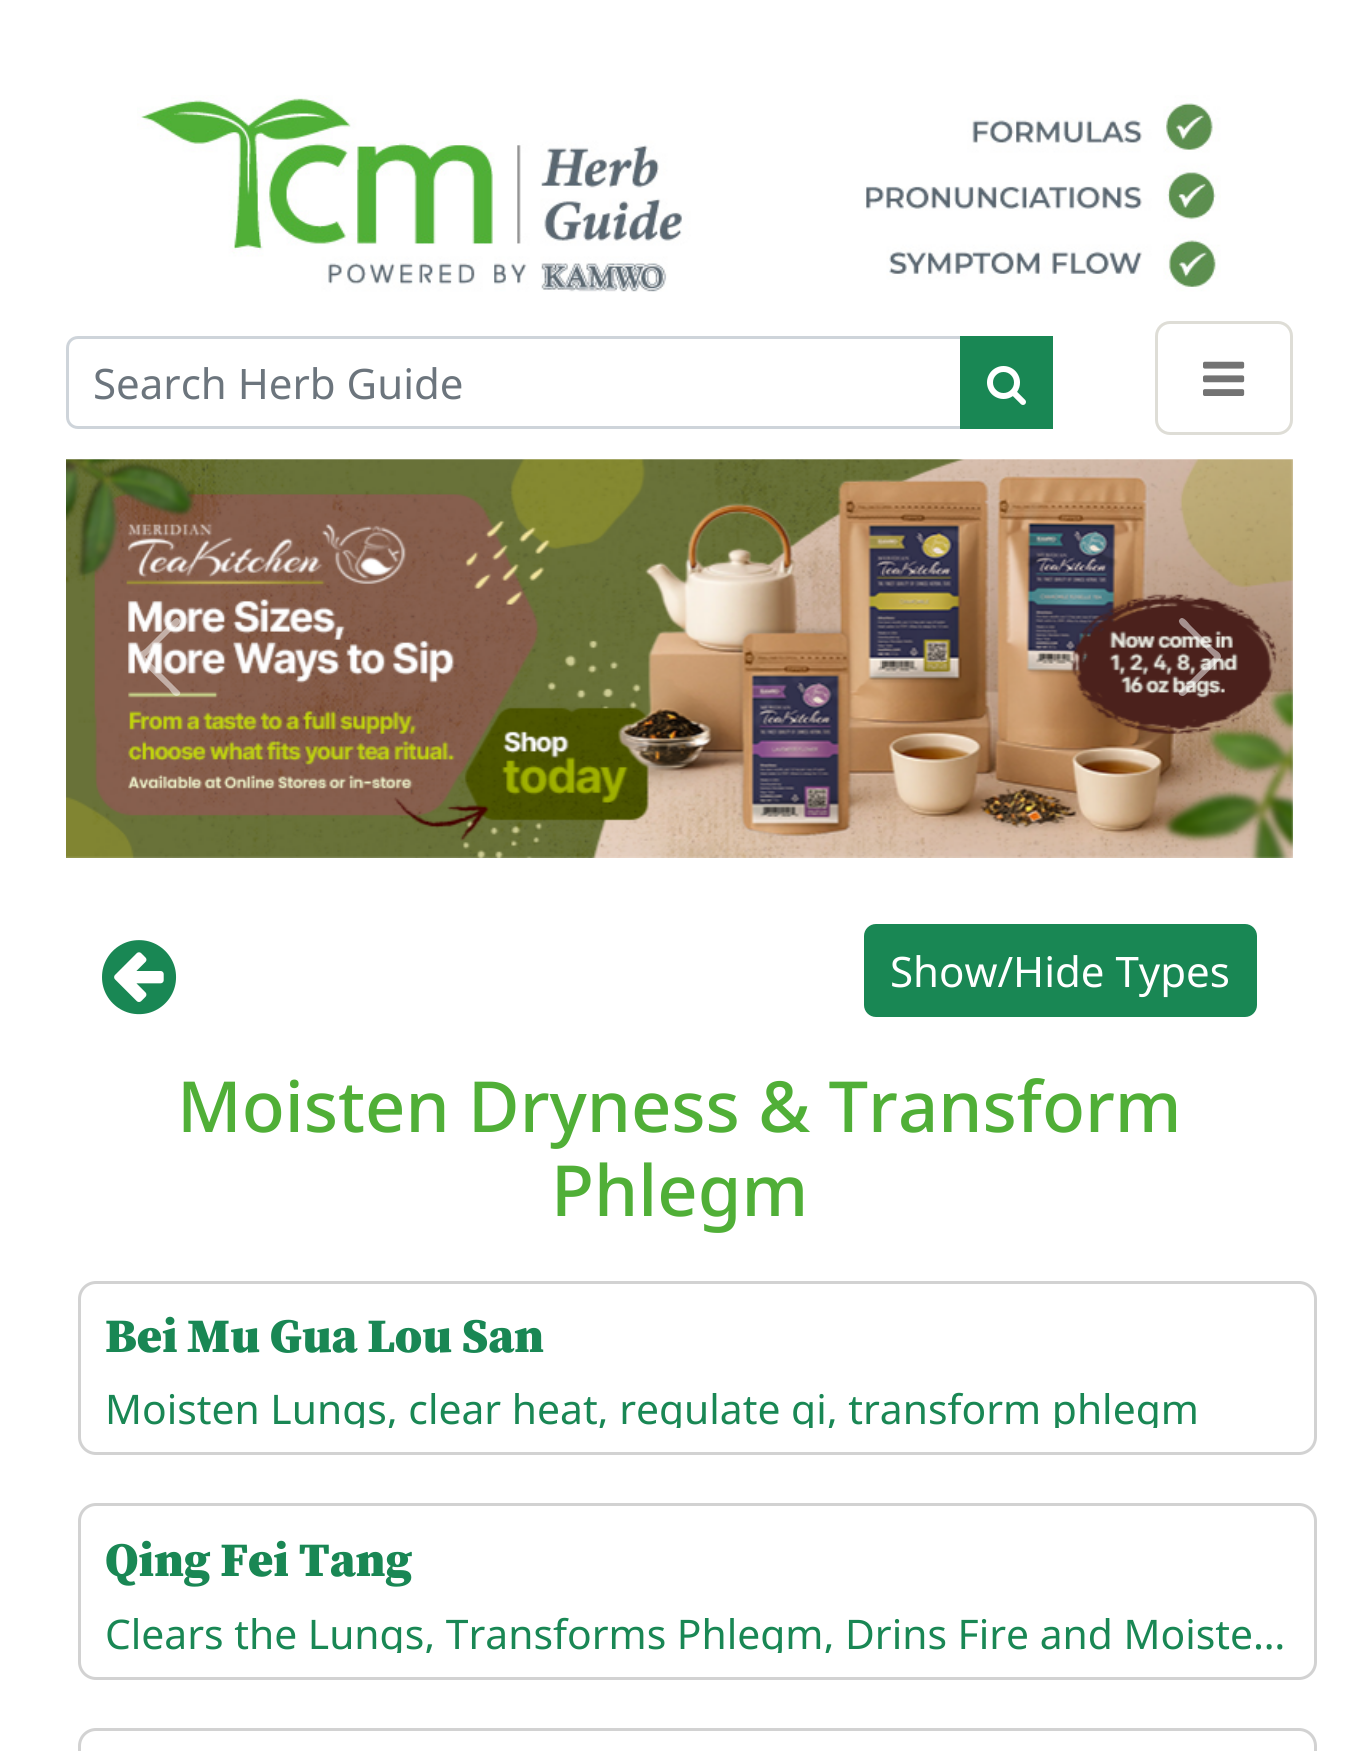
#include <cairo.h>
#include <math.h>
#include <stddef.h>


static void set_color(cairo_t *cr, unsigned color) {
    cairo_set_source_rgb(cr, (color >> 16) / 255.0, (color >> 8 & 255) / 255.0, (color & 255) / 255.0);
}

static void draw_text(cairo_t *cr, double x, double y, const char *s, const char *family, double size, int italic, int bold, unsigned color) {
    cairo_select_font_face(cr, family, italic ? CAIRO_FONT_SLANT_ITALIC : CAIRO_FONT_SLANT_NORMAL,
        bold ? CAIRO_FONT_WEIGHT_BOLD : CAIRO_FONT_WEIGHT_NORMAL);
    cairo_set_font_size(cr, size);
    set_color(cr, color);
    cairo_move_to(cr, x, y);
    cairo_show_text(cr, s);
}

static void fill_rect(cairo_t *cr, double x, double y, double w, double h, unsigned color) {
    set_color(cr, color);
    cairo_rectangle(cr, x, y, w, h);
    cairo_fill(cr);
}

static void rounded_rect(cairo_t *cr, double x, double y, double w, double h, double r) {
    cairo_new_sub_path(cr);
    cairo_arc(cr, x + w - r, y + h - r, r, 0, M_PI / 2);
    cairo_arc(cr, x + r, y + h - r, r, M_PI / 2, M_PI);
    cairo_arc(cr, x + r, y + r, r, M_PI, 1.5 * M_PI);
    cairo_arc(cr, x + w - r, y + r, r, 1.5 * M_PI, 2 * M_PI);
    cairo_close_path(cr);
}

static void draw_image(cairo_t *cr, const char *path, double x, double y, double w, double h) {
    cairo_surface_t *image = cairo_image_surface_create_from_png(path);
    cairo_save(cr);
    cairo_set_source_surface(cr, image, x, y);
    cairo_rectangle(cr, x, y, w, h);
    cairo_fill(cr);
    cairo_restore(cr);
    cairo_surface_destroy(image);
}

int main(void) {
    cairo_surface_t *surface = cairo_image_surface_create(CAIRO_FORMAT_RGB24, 1357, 1751);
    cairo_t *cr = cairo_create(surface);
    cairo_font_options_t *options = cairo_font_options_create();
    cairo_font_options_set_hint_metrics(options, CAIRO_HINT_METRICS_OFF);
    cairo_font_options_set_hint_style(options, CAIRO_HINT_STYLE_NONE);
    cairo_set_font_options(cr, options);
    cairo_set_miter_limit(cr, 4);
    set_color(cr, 0xFFFFFF);
    cairo_paint(cr);
    draw_image(cr, "assets/img1.png", 137, 95, 1084, 197);
    cairo_new_path(cr);
    cairo_move_to(cr, 78, 337.5);
    cairo_line_to(cr, 961.5, 337.5);
    cairo_line_to(cr, 961.5, 427.5);
    cairo_line_to(cr, 78, 427.5);
    cairo_curve_to(cr, 72, 427.5, 67.5, 423, 67.5, 417);
    cairo_line_to(cr, 67.5, 348);
    cairo_curve_to(cr, 67.5, 342, 72, 337.5, 78, 337.5);
    cairo_close_path(cr);
    set_color(cr, 0xCED4DA);
    cairo_set_line_width(cr, 3);
    cairo_stroke(cr);
    draw_text(cr, 93, 399, "Search Herb Guide", "Noto Sans", 42, 0, 0, 0x6C757D);
    fill_rect(cr, 960, 336, 93, 93, 0x198754);
    draw_image(cr, "assets/img2.png", 987, 366, 39, 39);
    rounded_rect(cr, 1156.5, 322.5, 135, 111, 13.5);
    set_color(cr, 0xDEDDD6);
    cairo_stroke(cr);
    draw_image(cr, "assets/img3.png", 1203, 361, 42, 35);
    draw_image(cr, "assets/img4.png", 66, 459, 1227, 399);
    cairo_set_source_rgba(cr, 1, 1, 1, 0.5);
    cairo_new_path(cr);
    cairo_move_to(cr, 179, 619);
    cairo_curve_to(cr, 183, 622, 175, 628, 173, 629);
    cairo_line_to(cr, 145, 657);
    cairo_line_to(cr, 180, 692);
    cairo_curve_to(cr, 181, 694, 179, 696, 176, 696);
    cairo_curve_to(cr, 173, 695, 171, 692, 169, 689);
    cairo_curve_to(cr, 165, 685, 138, 660, 138, 657);
    cairo_curve_to(cr, 138, 653, 142, 651, 145, 649);
    cairo_line_to(cr, 169, 625);
    cairo_curve_to(cr, 170, 624, 176, 615, 179, 619);
    cairo_close_path(cr);
    cairo_fill(cr);
    cairo_new_path(cr);
    cairo_move_to(cr, 1180, 619);
    cairo_curve_to(cr, 1183, 615, 1189, 624, 1190, 625);
    cairo_line_to(cr, 1214, 649);
    cairo_curve_to(cr, 1217, 651, 1221, 653, 1221, 657);
    cairo_curve_to(cr, 1221, 660, 1194, 685, 1190, 689);
    cairo_curve_to(cr, 1188, 692, 1186, 695, 1183, 696);
    cairo_curve_to(cr, 1180, 696, 1178, 694, 1179, 692);
    cairo_line_to(cr, 1214, 657);
    cairo_line_to(cr, 1186, 629);
    cairo_curve_to(cr, 1184, 628, 1176, 622, 1180, 619);
    cairo_close_path(cr);
    cairo_fill(cr);
    draw_image(cr, "assets/img5.png", 102, 940, 75, 75);
    set_color(cr, 0x198754);
    rounded_rect(cr, 865.5, 925.5, 390, 90, 10.5);
    cairo_fill_preserve(cr);
    cairo_stroke(cr);
    draw_text(cr, 890, 987, "Show/Hide Types", "Noto Sans", 42, 0, 0, 0xFFFFFF);
    draw_text(cr, 177, 1132, "Moisten Dryness & Transform", "Noto Sans Medium", 70.5, 0, 0, 0x50AF37);
    draw_text(cr, 551, 1216, "Phlegm", "Noto Sans Medium", 70.5, 0, 0, 0x50AF37);
    rounded_rect(cr, 79.5, 1282.5, 1236, 171, 16.5);
    set_color(cr, 0xD2D2D2);
    cairo_stroke(cr);
    draw_text(cr, 105, 1352, "Bei Mu Gua Lou San", "Source Serif Pro Black", 48, 0, 0, 0x198754);
    cairo_save(cr);
    cairo_rectangle(cr, 105, 1389, 1185, 39);
    cairo_clip(cr);
    draw_text(cr, 105, 1424, "Moisten Lungs, clear heat, regulate qi, transform phlegm", "Noto Sans", 40.8, 0, 0, 0x198754);
    cairo_restore(cr);
    rounded_rect(cr, 79.5, 1504.5, 1236, 174, 16.5);
    set_color(cr, 0xD2D2D2);
    cairo_stroke(cr);
    draw_text(cr, 105, 1576, "Qing Fei Tang", "Source Serif Pro Black", 48, 0, 0, 0x198754);
    cairo_save(cr);
    cairo_rectangle(cr, 105, 1614, 1185, 39);
    cairo_clip(cr);
    draw_text(cr, 105, 1649, "Clears the Lungs, Transforms Phlegm, Drins Fire and Moiste…", "Noto Sans", 40.8, 0, 0, 0x198754);
    cairo_restore(cr);
    rounded_rect(cr, 79.5, 1729.5, 1236, 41, 16.5);
    set_color(cr, 0xD2D2D2);
    cairo_stroke(cr);
    cairo_surface_write_to_png(surface, "output.png");
    cairo_font_options_destroy(options);
    cairo_destroy(cr);
    cairo_surface_destroy(surface);
    return 0;
}
